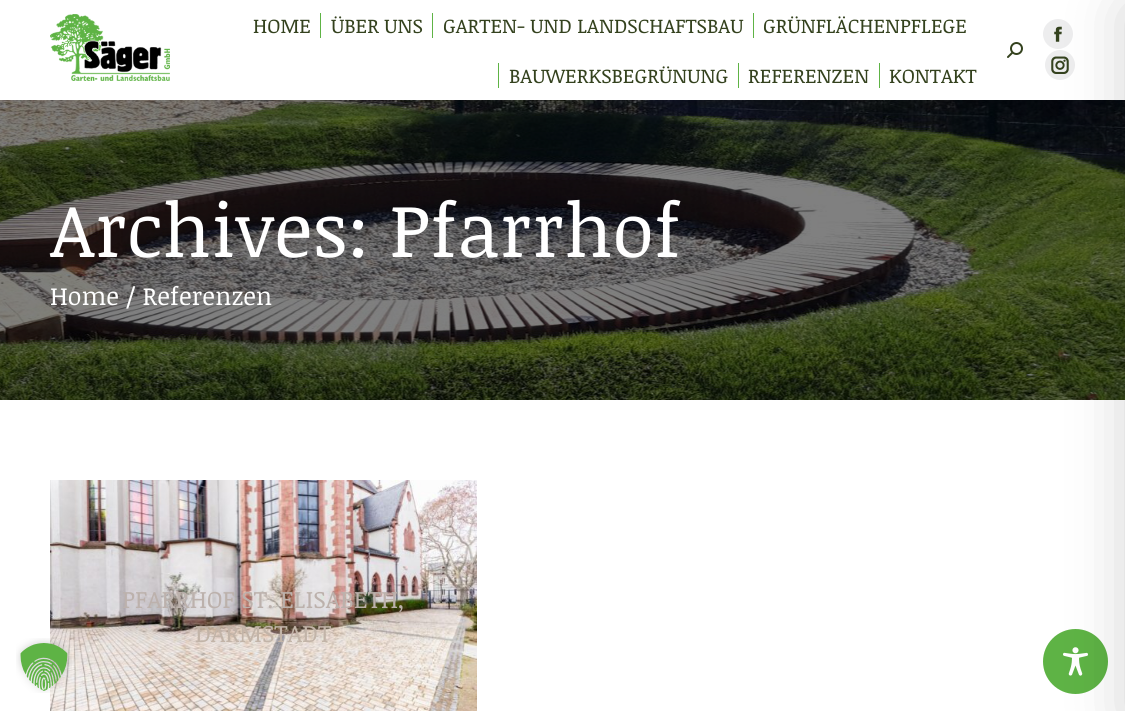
#include <cairo.h>
#include <math.h>
#include <stddef.h>


static void set_color(cairo_t *cr, unsigned color) {
    cairo_set_source_rgb(cr, (color >> 16) / 255.0, (color >> 8 & 255) / 255.0, (color & 255) / 255.0);
}

static void draw_text(cairo_t *cr, double x, double y, const char *s, const char *family, double size, int italic, int bold, unsigned color) {
    cairo_select_font_face(cr, family, italic ? CAIRO_FONT_SLANT_ITALIC : CAIRO_FONT_SLANT_NORMAL,
        bold ? CAIRO_FONT_WEIGHT_BOLD : CAIRO_FONT_WEIGHT_NORMAL);
    cairo_set_font_size(cr, size);
    set_color(cr, color);
    cairo_move_to(cr, x, y);
    cairo_show_text(cr, s);
}

static void fill_rect(cairo_t *cr, double x, double y, double w, double h, unsigned color) {
    set_color(cr, color);
    cairo_rectangle(cr, x, y, w, h);
    cairo_fill(cr);
}

static void rounded_rect(cairo_t *cr, double x, double y, double w, double h, double r) {
    cairo_new_sub_path(cr);
    cairo_arc(cr, x + w - r, y + h - r, r, 0, M_PI / 2);
    cairo_arc(cr, x + r, y + h - r, r, M_PI / 2, M_PI);
    cairo_arc(cr, x + r, y + r, r, M_PI, 1.5 * M_PI);
    cairo_arc(cr, x + w - r, y + r, r, 1.5 * M_PI, 2 * M_PI);
    cairo_close_path(cr);
}

static void draw_shadow(cairo_t *cr, double x, double y, double w, double h, double r, double blur, double alpha) {
    cairo_push_group_with_content(cr, CAIRO_CONTENT_ALPHA);
    cairo_set_operator(cr, CAIRO_OPERATOR_SOURCE);
    for (int i = 15; i >= -15 && fmin(w, h) + blur * i / 3 > 0; i -= 2) {
        double e = blur * i / 6;
        cairo_set_source_rgba(cr, 0, 0, 0, alpha * erfc((i - 1) / 8.5) / 2);
        rounded_rect(cr, x - e, y - e, w + 2 * e, h + 2 * e, fmax(0, fmin(r + e + blur * .6, fmin(w, h) / 2 + e)));
        cairo_fill(cr);
    }
    cairo_pattern_t *soft = cairo_pop_group(cr);
    cairo_mask(cr, soft);
    cairo_pattern_destroy(soft);
}

static void draw_image(cairo_t *cr, const char *path, double x, double y, double w, double h) {
    cairo_surface_t *image = cairo_image_surface_create_from_png(path);
    cairo_save(cr);
    cairo_set_source_surface(cr, image, x, y);
    cairo_rectangle(cr, x, y, w, h);
    cairo_fill(cr);
    cairo_restore(cr);
    cairo_surface_destroy(image);
}

int main(void) {
    cairo_surface_t *surface = cairo_image_surface_create(CAIRO_FORMAT_RGB24, 1125, 711);
    cairo_t *cr = cairo_create(surface);
    cairo_font_options_t *options = cairo_font_options_create();
    cairo_font_options_set_hint_metrics(options, CAIRO_HINT_METRICS_OFF);
    cairo_font_options_set_hint_style(options, CAIRO_HINT_STYLE_NONE);
    cairo_set_font_options(cr, options);
    cairo_set_miter_limit(cr, 4);
    set_color(cr, 0xFFFFFF);
    cairo_paint(cr);
    draw_image(cr, "assets/img1.png", 50, 14, 120, 67);
    draw_text(cr, 253, 33, "HOME", "Noticia Text", 20, 0, 0, 0x34421E);
    fill_rect(cr, 320, 13, 1, 25, 0x5EB345);
    draw_text(cr, 331, 33, "ÜBER UNS", "Noticia Text", 20, 0, 0, 0x34421E);
    fill_rect(cr, 432, 13, 1, 25, 0x5EB345);
    draw_text(cr, 443, 33, "GARTEN- UND LANDSCHAFTSBAU", "Noticia Text", 20, 0, 0, 0x34421E);
    fill_rect(cr, 753, 13, 1, 25, 0x5EB345);
    draw_text(cr, 763, 33, "GRÜNFLÄCHENPFLEGE", "Noticia Text", 20, 0, 0, 0x34421E);
    fill_rect(cr, 498, 63, 1, 25, 0x5EB345);
    draw_text(cr, 509, 83, "BAUWERKSBEGRÜNUNG", "Noticia Text", 20, 0, 0, 0x34421E);
    fill_rect(cr, 738, 63, 1, 25, 0x5EB345);
    draw_text(cr, 748, 83, "REFERENZEN", "Noticia Text", 20, 0, 0, 0x34421E);
    fill_rect(cr, 879, 63, 1, 25, 0x5EB345);
    draw_text(cr, 889, 83, "KONTAKT", "Noticia Text", 20, 0, 0, 0x34421E);
    draw_image(cr, "assets/img2.png", 1007, 42, 16, 16);
    set_color(cr, 0xEDEDEE);
    cairo_arc(cr, 1058, 34, 15, 0, 2 * M_PI);
    cairo_fill(cr);
    draw_image(cr, "assets/img3.png", 1054, 26, 8, 16);
    cairo_arc(cr, 1060, 65, 15, 0, 2 * M_PI);
    cairo_fill(cr);
    draw_image(cr, "assets/img4.png", 1051, 56, 18, 18);
    draw_image(cr, "assets/img5.png", 0, 100, 1125, 300);
    draw_text(cr, 50, 257, "Archives: Pfarrhof", "Noticia Text", 75, 0, 0, 0xFFFFFF);
    draw_text(cr, 50, 305, "Home / Referenzen", "Noticia Text", 25, 0, 0, 0xFFFFFF);
    draw_image(cr, "assets/img6.png", 50, 480, 427, 231);
    draw_text(cr, 122, 608, "PFARRHOF ST. ELISABETH,", "Noticia Text", 24, 0, 0, 0xBCB1AC);
    draw_text(cr, 195, 642, "DARMSTADT", "Noticia Text", 24, 0, 0, 0xC2B4A8);
    set_color(cr, 0x5EB345);
    cairo_new_path(cr);
    cairo_arc(cr, 1075.5, 661.5, 32.5, 0, 2 * M_PI);
    cairo_fill(cr);
    draw_image(cr, "assets/img8.png", 1063, 647, 25, 29);
    set_color(cr, 0x000000);
    draw_shadow(cr, 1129, 10, 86, 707, 0, 30, 0.2);
    draw_image(cr, "assets/img7.png", 16, 638, 56, 55);
    cairo_surface_write_to_png(surface, "output.png");
    cairo_font_options_destroy(options);
    cairo_destroy(cr);
    cairo_surface_destroy(surface);
    return 0;
}
